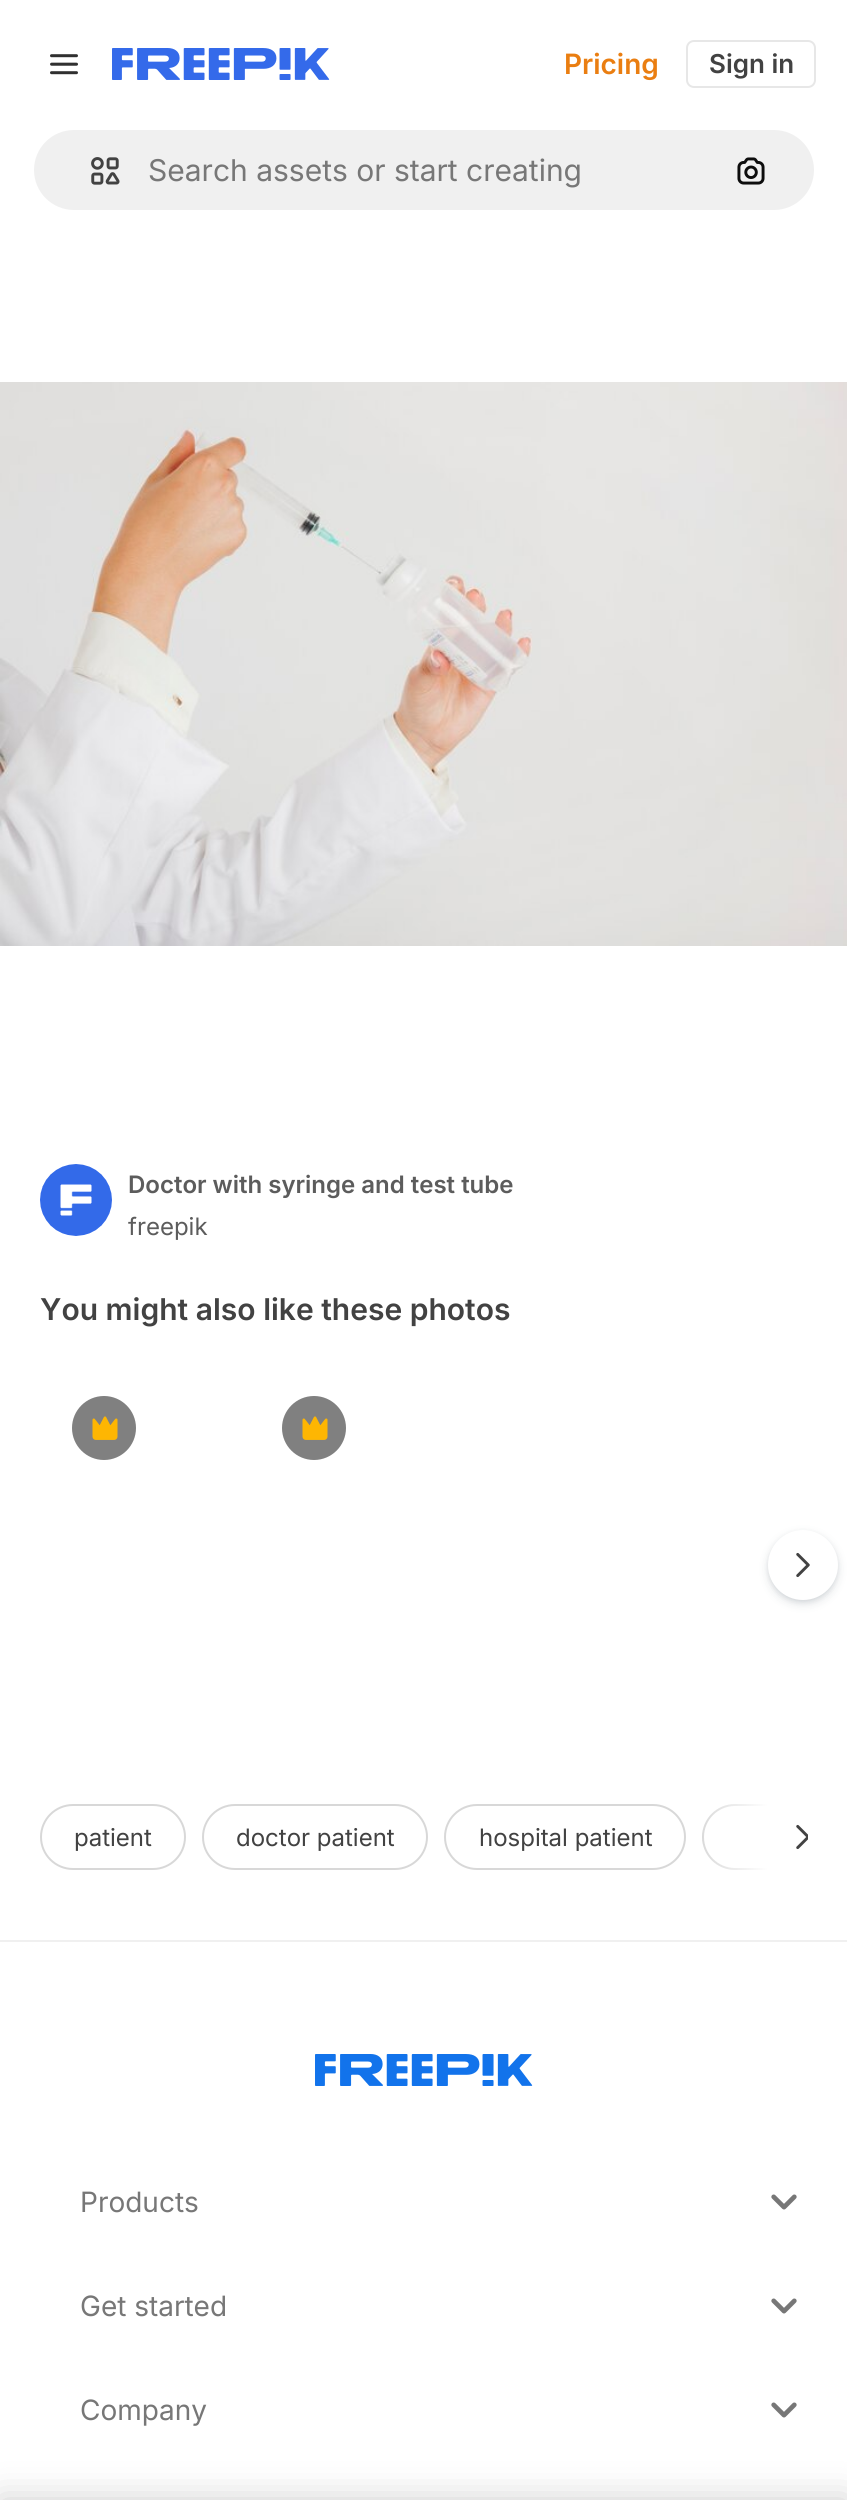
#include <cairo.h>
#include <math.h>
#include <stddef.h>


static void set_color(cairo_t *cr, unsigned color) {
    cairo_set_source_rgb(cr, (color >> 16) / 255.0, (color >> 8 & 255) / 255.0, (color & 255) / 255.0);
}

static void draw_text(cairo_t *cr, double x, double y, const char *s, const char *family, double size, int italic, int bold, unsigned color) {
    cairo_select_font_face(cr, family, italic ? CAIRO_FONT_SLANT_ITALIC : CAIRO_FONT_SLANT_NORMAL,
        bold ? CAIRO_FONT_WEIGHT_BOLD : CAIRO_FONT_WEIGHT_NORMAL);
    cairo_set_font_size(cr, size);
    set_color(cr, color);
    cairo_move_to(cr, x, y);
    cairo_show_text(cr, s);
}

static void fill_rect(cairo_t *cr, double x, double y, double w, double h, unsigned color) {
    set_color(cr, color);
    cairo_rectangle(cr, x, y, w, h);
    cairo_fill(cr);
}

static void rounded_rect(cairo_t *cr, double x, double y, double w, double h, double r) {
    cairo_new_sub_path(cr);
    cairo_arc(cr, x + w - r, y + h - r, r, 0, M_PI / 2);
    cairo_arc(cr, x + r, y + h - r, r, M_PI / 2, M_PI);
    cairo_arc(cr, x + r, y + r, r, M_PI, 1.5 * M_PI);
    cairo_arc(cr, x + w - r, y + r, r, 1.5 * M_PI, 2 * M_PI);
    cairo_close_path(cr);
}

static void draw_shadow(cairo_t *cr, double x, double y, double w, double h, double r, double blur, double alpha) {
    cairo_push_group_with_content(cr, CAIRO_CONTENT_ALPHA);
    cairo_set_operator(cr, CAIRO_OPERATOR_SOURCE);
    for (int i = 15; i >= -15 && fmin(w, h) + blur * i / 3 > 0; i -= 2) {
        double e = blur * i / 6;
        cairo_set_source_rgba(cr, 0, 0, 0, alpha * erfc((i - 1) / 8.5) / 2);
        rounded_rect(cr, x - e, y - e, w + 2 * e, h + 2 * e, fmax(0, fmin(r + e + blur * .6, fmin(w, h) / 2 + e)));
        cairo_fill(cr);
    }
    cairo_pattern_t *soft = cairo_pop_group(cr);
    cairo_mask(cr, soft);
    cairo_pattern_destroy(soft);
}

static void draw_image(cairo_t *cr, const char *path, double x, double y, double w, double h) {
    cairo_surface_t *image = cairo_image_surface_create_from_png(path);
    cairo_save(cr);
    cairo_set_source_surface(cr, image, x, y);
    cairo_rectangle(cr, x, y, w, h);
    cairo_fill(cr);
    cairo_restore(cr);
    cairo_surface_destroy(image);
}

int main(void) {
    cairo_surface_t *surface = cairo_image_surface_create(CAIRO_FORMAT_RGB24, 847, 2500);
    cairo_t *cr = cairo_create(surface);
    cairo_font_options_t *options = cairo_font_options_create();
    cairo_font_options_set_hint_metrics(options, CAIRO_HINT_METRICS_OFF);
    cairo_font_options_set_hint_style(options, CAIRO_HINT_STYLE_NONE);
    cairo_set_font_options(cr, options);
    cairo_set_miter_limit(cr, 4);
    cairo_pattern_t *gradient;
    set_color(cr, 0xFFFFFF);
    cairo_paint(cr);
    draw_image(cr, "assets/img1.png", 50, 54, 28, 21);
    draw_image(cr, "assets/img2.png", 112, 48, 218, 32);
    draw_text(cr, 564, 74, "Pricing", "Inter SemiBold", 28, 0, 0, 0xEA7E11);
    rounded_rect(cr, 687, 41, 128, 46, 7);
    set_color(cr, 0xE7E7E7);
    cairo_stroke(cr);
    draw_text(cr, 709, 73, "Sign in", "Inter SemiBold", 26, 0, 0, 0x424242);
    set_color(cr, 0xF0F0F0);
    rounded_rect(cr, 33, 129, 782, 82, 41);
    cairo_fill_preserve(cr);
    set_color(cr, 0xFFFFFF);
    cairo_stroke(cr);
    draw_image(cr, "assets/img3.png", 91, 157, 29, 28);
    draw_text(cr, 148, 181, "Search assets or start creating", "Inter", 30, 0, 0, 0x777777);
    draw_image(cr, "assets/img4.png", 737, 157, 28, 28);
    draw_image(cr, "assets/img5.png", 0, 382, 847, 564);
    draw_image(cr, "assets/img6.png", 40, 1164, 72, 72);
    draw_text(cr, 128, 1193, "Doctor with syringe and test tube", "Inter SemiBold", 24, 0, 0, 0x5C5C5C);
    draw_text(cr, 128, 1235, "freepik", "Inter", 24, 0, 0, 0x5C5C5C);
    draw_text(cr, 40, 1320, "You might also like these photos", "Inter SemiBold", 30, 0, 0, 0x424242);
    set_color(cr, 0x808080);
    cairo_new_path(cr);
    cairo_arc(cr, 104, 1428, 32, 0, 2 * M_PI);
    cairo_fill(cr);
    draw_image(cr, "assets/img7.png", 92, 1416, 26, 24);
    cairo_arc(cr, 314, 1428, 32, 0, 2 * M_PI);
    cairo_fill(cr);
    draw_image(cr, "assets/img7.png", 302, 1416, 26, 24);
    set_color(cr, 0x374957);
    draw_shadow(cr, 768, 1534, 70, 70, 35, 5, 0.15);
    draw_shadow(cr, 768, 1532, 70, 70, 35, 2, 0.1);
    set_color(cr, 0xFFFFFF);
    cairo_arc(cr, 803, 1565, 35, 0, 2 * M_PI);
    cairo_fill(cr);
    draw_image(cr, "assets/img8.png", 796, 1552, 14, 26);
    rounded_rect(cr, 41, 1805, 144, 64, 32);
    set_color(cr, 0xD8D8D8);
    cairo_stroke(cr);
    draw_text(cr, 74, 1846, "patient", "Inter", 24, 0, 0, 0x424242);
    rounded_rect(cr, 203, 1805, 224, 64, 32);
    set_color(cr, 0xD8D8D8);
    cairo_stroke(cr);
    draw_text(cr, 236, 1846, "doctor patient", "Inter", 24, 0, 0, 0x424242);
    rounded_rect(cr, 445, 1805, 240, 64, 32);
    set_color(cr, 0xD8D8D8);
    cairo_stroke(cr);
    draw_text(cr, 479, 1846, "hospital patient", "Inter", 24, 0, 0, 0x424242);
    cairo_save(cr);
    cairo_rectangle(cr, 40, 1804, 768, 66);
    cairo_clip(cr);
    rounded_rect(cr, 703, 1805, 136, 64, 32);
    set_color(cr, 0xD8D8D8);
    cairo_stroke(cr);
    cairo_restore(cr);
    fill_rect(cr, 768, 1804, 40, 66, 0xFFFFFF);
    gradient = cairo_pattern_create_linear(768, 1837, 698, 1837);
    cairo_pattern_add_color_stop_rgba(gradient, 0, 1, 1, 1, 1);
    cairo_pattern_add_color_stop_rgba(gradient, 1, 1, 1, 1, 0);
    cairo_set_source(cr, gradient);
    cairo_pattern_destroy(gradient);
    cairo_rectangle(cr, 703, 1804, 65, 66);
    cairo_fill(cr);
    draw_image(cr, "assets/img9.png", 796, 1824, 12, 26);
    fill_rect(cr, 0, 1940, 847, 2, 0xF0F0F0);
    draw_image(cr, "assets/img10.png", 315, 2054, 218, 32);
    draw_text(cr, 80, 2212, "Products", "Inter", 28, 0, 0, 0x777777);
    draw_image(cr, "assets/img11.png", 771, 2194, 26, 16);
    draw_text(cr, 80, 2316, "Get started", "Inter", 28, 0, 0, 0x777777);
    draw_image(cr, "assets/img11.png", 771, 2298, 26, 16);
    draw_text(cr, 80, 2420, "Company", "Inter", 28, 0, 0, 0x777777);
    draw_image(cr, "assets/img11.png", 771, 2402, 26, 16);
    set_color(cr, 0x000000);
    draw_shadow(cr, 0, 2500, 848, 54, 0, 18, 0.2);
    cairo_surface_write_to_png(surface, "output.png");
    cairo_font_options_destroy(options);
    cairo_destroy(cr);
    cairo_surface_destroy(surface);
    return 0;
}
